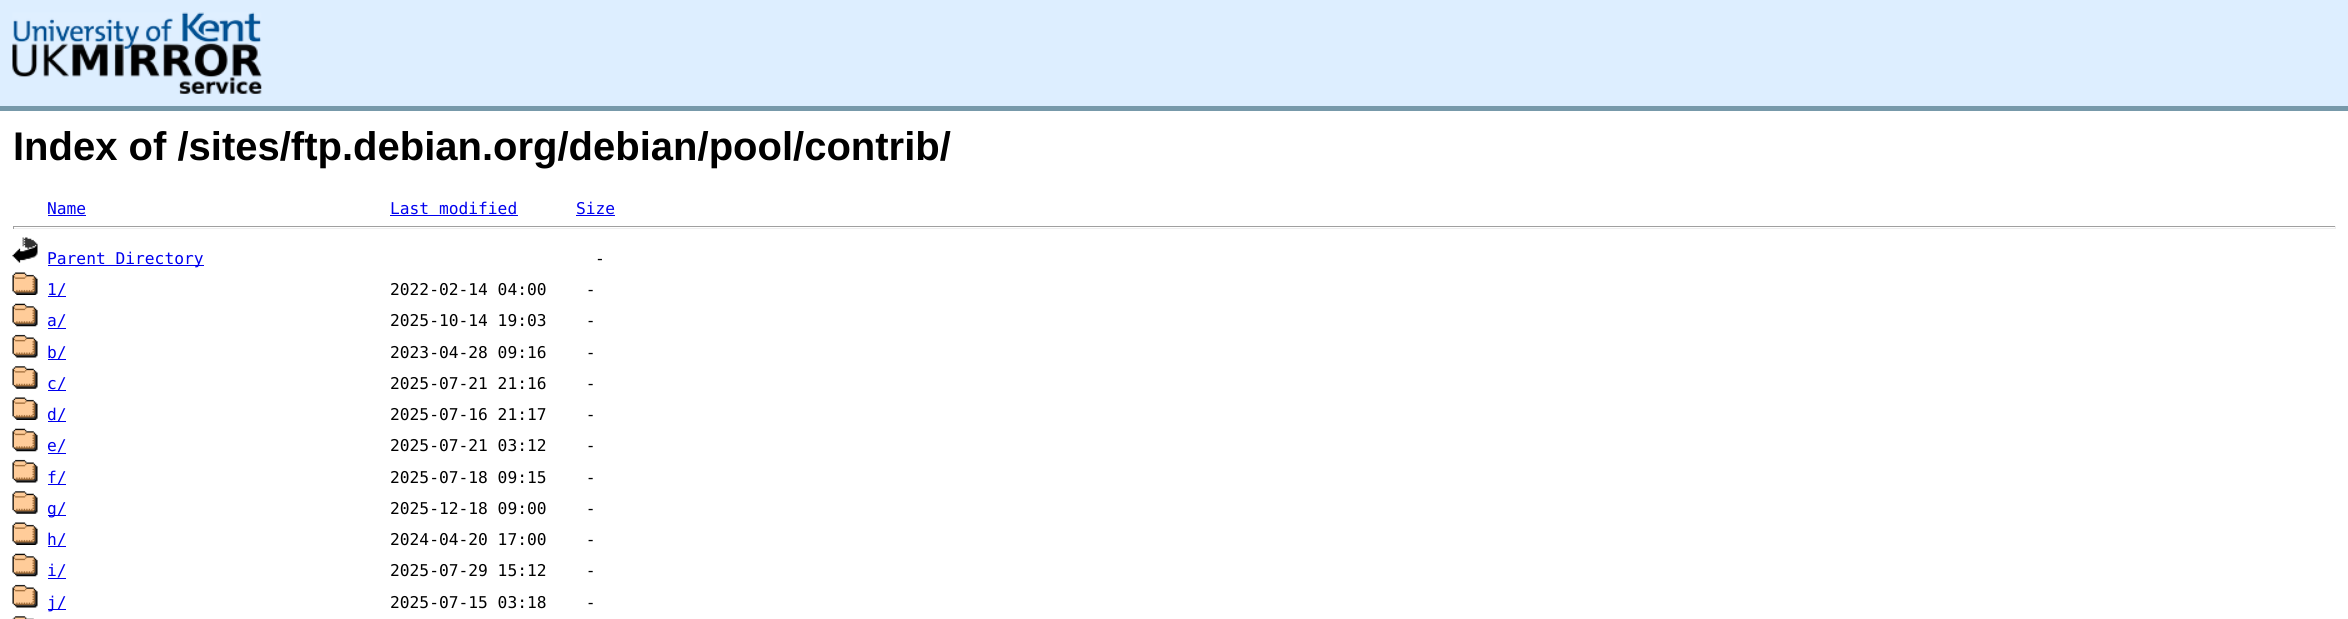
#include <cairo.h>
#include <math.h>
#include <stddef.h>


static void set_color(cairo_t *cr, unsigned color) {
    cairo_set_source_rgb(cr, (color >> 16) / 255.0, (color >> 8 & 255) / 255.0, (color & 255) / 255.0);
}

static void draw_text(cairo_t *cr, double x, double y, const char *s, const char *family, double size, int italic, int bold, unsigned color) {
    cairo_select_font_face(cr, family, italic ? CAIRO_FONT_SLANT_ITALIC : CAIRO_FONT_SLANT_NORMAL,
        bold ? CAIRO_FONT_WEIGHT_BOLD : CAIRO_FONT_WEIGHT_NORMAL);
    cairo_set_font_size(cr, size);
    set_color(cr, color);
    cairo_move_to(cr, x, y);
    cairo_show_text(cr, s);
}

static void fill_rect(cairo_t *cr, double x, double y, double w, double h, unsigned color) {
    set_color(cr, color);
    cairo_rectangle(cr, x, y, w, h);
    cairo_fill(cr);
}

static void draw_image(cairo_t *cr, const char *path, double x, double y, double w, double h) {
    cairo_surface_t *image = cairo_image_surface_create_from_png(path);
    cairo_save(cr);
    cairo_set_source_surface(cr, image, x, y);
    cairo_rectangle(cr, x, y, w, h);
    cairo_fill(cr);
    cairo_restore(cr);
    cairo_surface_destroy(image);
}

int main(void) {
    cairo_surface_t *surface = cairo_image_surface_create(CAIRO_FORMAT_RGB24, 2348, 619);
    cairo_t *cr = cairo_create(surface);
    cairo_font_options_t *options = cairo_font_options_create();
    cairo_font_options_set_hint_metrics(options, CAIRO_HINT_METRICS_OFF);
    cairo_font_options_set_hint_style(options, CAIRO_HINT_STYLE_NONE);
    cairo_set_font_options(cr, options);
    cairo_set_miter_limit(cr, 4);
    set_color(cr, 0xFFFFFF);
    cairo_paint(cr);
    fill_rect(cr, 0, 0, 2348, 106, 0xDDEEFF);
    fill_rect(cr, 0, 106, 2348, 5, 0x7799AA);
    draw_image(cr, "assets/img1.png", 12, 12, 250, 82);
    draw_text(cr, 13, 160, "Index of /sites/ftp.debian.org/debian/pool/contrib/", "Liberation Sans", 40, 0, 1, 0x000000);
    draw_text(cr, 47, 214, "Name", "DejaVu Sans Mono", 16.25, 0, 0, 0x0000EE);
    fill_rect(cr, 48, 215, 38, 1, 0x0000EE);
    draw_text(cr, 390, 214, "Last modified", "DejaVu Sans Mono", 16.25, 0, 0, 0x0000EE);
    fill_rect(cr, 390, 215, 128, 1, 0x0000EE);
    draw_text(cr, 576, 214, "Size", "DejaVu Sans Mono", 16.25, 0, 0, 0x0000EE);
    fill_rect(cr, 576, 215, 39, 1, 0x0000EE);
    fill_rect(cr, 13, 226, 2323, 1, 0x9F9F9F);
    fill_rect(cr, 2335, 226, 1, 3, 0xEEEEEE);
    fill_rect(cr, 13, 228, 2323, 1, 0xEEEEEE);
    fill_rect(cr, 13, 226, 1, 3, 0x9F9F9F);
    draw_image(cr, "assets/img2.png", 12, 237, 26, 26);
    fill_rect(cr, 48, 265, 156, 1, 0x0000EE);
    draw_text(cr, 47, 264, "Parent Directory", "DejaVu Sans Mono", 16.25, 0, 0, 0x0000EE);
    draw_text(cr, 595, 264, "-", "DejaVu Sans Mono", 16.25, 0, 0, 0x000000);
    draw_image(cr, "assets/img3.png", 12, 272, 26, 23);
    fill_rect(cr, 48, 296, 18, 1, 0x0000EE);
    draw_text(cr, 47, 295, "1/", "DejaVu Sans Mono", 16.25, 0, 0, 0x0000EE);
    draw_text(cr, 390, 295, "2022-02-14 04:00    -", "DejaVu Sans Mono", 16.25, 0, 0, 0x000000);
    draw_image(cr, "assets/img4.png", 12, 303, 26, 24);
    draw_text(cr, 47, 326, "a/", "DejaVu Sans Mono", 16.25, 0, 0, 0x0000EE);
    fill_rect(cr, 48, 328, 18, 1, 0x0000EE);
    draw_text(cr, 390, 326, "2025-10-14 19:03    -", "DejaVu Sans Mono", 16.25, 0, 0, 0x000000);
    draw_image(cr, "assets/img5.png", 12, 334, 26, 24);
    fill_rect(cr, 48, 359, 18, 1, 0x0000EE);
    draw_text(cr, 47, 358, "b/", "DejaVu Sans Mono", 16.25, 0, 0, 0x0000EE);
    draw_text(cr, 390, 358, "2023-04-28 09:16    -", "DejaVu Sans Mono", 16.25, 0, 0, 0x000000);
    draw_image(cr, "assets/img6.png", 12, 366, 26, 23);
    fill_rect(cr, 48, 390, 18, 1, 0x0000EE);
    draw_text(cr, 47, 389, "c/", "DejaVu Sans Mono", 16.25, 0, 0, 0x0000EE);
    draw_text(cr, 390, 389, "2025-07-21 21:16    -", "DejaVu Sans Mono", 16.25, 0, 0, 0x000000);
    draw_image(cr, "assets/img3.png", 12, 397, 26, 23);
    fill_rect(cr, 48, 421, 18, 1, 0x0000EE);
    draw_text(cr, 47, 420, "d/", "DejaVu Sans Mono", 16.25, 0, 0, 0x0000EE);
    draw_text(cr, 390, 420, "2025-07-16 21:17    -", "DejaVu Sans Mono", 16.25, 0, 0, 0x000000);
    draw_image(cr, "assets/img4.png", 12, 428, 26, 24);
    draw_text(cr, 47, 451, "e/", "DejaVu Sans Mono", 16.25, 0, 0, 0x0000EE);
    fill_rect(cr, 48, 453, 18, 1, 0x0000EE);
    draw_text(cr, 390, 451, "2025-07-21 03:12    -", "DejaVu Sans Mono", 16.25, 0, 0, 0x000000);
    draw_image(cr, "assets/img5.png", 12, 459, 26, 24);
    fill_rect(cr, 48, 484, 18, 1, 0x0000EE);
    draw_text(cr, 47, 483, "f/", "DejaVu Sans Mono", 16.25, 0, 0, 0x0000EE);
    draw_text(cr, 390, 483, "2025-07-18 09:15    -", "DejaVu Sans Mono", 16.25, 0, 0, 0x000000);
    draw_image(cr, "assets/img6.png", 12, 491, 26, 23);
    fill_rect(cr, 48, 515, 18, 1, 0x0000EE);
    draw_text(cr, 47, 514, "g/", "DejaVu Sans Mono", 16.25, 0, 0, 0x0000EE);
    draw_text(cr, 390, 514, "2025-12-18 09:00    -", "DejaVu Sans Mono", 16.25, 0, 0, 0x000000);
    draw_image(cr, "assets/img3.png", 12, 522, 26, 23);
    fill_rect(cr, 48, 546, 18, 1, 0x0000EE);
    draw_text(cr, 47, 545, "h/", "DejaVu Sans Mono", 16.25, 0, 0, 0x0000EE);
    draw_text(cr, 390, 545, "2024-04-20 17:00    -", "DejaVu Sans Mono", 16.25, 0, 0, 0x000000);
    draw_image(cr, "assets/img4.png", 12, 553, 26, 24);
    draw_text(cr, 47, 576, "i/", "DejaVu Sans Mono", 16.25, 0, 0, 0x0000EE);
    fill_rect(cr, 48, 578, 18, 1, 0x0000EE);
    draw_text(cr, 390, 576, "2025-07-29 15:12    -", "DejaVu Sans Mono", 16.25, 0, 0, 0x000000);
    draw_image(cr, "assets/img7.png", 12, 584, 26, 24);
    fill_rect(cr, 48, 609, 18, 1, 0x0000EE);
    draw_text(cr, 47, 608, "j/", "DejaVu Sans Mono", 16.25, 0, 0, 0x0000EE);
    draw_text(cr, 390, 608, "2025-07-15 03:18    -", "DejaVu Sans Mono", 16.25, 0, 0, 0x000000);
    draw_image(cr, "assets/img8.png", 12, 616, 22, 3);
    cairo_surface_write_to_png(surface, "output.png");
    cairo_font_options_destroy(options);
    cairo_destroy(cr);
    cairo_surface_destroy(surface);
    return 0;
}
